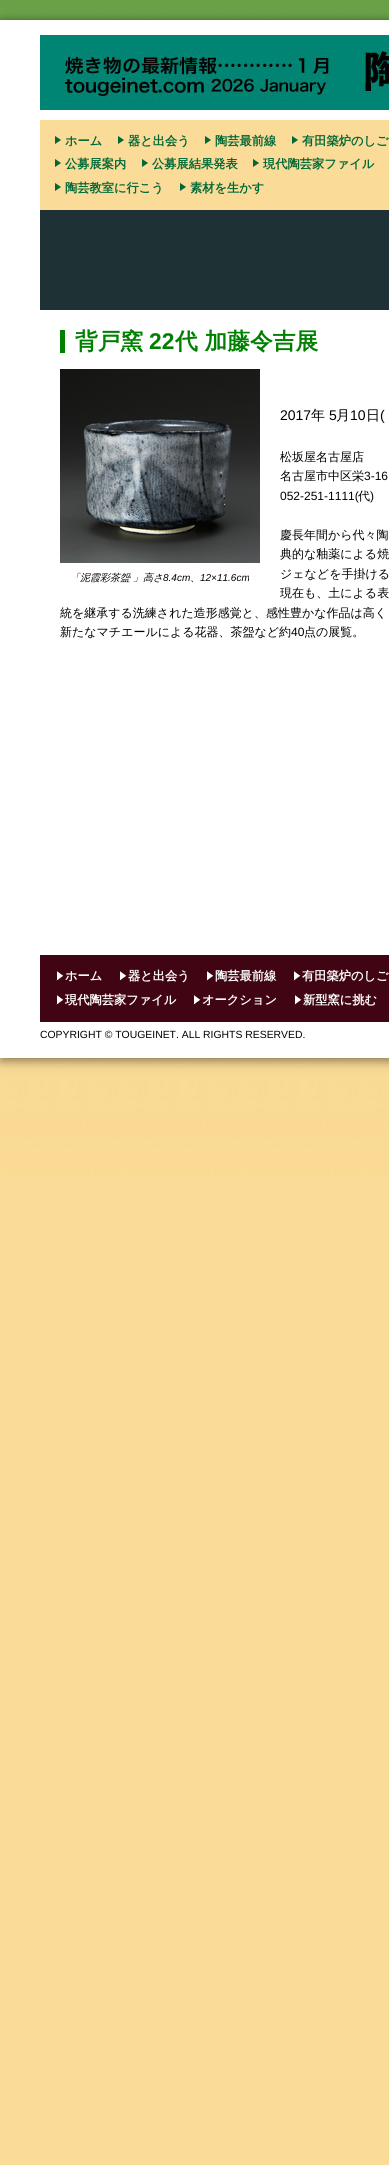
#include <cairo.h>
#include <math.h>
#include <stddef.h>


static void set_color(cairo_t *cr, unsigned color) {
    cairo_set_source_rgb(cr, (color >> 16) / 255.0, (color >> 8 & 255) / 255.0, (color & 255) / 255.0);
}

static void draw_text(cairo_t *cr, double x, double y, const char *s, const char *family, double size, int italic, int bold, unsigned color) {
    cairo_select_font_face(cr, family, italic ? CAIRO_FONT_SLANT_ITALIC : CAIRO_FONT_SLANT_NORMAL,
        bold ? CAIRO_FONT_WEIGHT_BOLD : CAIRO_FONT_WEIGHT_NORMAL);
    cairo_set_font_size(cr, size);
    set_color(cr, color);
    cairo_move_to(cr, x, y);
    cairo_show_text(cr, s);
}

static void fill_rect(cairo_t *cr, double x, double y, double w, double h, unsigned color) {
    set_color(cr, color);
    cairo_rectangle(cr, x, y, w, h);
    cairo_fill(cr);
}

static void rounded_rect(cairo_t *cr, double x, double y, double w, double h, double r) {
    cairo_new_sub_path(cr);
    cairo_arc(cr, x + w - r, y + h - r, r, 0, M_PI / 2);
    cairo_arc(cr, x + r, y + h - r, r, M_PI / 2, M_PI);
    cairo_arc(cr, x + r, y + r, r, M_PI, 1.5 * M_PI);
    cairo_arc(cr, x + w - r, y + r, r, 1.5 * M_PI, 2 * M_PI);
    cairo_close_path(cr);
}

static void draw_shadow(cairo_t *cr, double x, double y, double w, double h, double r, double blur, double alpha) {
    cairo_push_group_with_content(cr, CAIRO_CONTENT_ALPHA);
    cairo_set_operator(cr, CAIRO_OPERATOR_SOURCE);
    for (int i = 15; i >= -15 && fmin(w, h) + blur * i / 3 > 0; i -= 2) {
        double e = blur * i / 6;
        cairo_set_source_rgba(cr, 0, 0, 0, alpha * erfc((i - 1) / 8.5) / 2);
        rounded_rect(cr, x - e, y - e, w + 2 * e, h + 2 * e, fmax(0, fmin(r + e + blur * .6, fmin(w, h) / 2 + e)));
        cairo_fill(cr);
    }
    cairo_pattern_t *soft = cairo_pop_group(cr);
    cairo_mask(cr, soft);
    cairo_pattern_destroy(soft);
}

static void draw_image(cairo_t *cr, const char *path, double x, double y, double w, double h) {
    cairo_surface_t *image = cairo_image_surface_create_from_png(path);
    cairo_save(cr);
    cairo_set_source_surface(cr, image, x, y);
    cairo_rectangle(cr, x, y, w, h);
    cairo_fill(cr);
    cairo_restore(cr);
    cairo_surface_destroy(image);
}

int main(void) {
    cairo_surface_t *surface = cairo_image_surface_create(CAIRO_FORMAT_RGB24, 389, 2165);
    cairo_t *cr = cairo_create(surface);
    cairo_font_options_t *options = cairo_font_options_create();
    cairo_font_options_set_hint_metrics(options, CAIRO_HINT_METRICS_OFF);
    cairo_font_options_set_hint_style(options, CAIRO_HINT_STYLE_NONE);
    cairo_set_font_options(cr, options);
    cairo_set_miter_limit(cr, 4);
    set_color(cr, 0xFADB98);
    cairo_paint(cr);
    draw_image(cr, "assets/img1.png", 0, 0, 389, 1176);
    set_color(cr, 0x000000);
    draw_shadow(cr, 0, 25, 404, 1038, 0, 5, 0.2);
    draw_shadow(cr, -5, 20, 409, 1038, 0, 5, 0.2);
    draw_shadow(cr, 5, 20, 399, 1038, 0, 5, 0.2);
    fill_rect(cr, 0, 20, 389, 1038, 0xFFFFFF);
    draw_image(cr, "assets/img2.png", 40, 35, 349, 75);
    fill_rect(cr, 40, 120, 349, 90, 0xFADB98);
    draw_image(cr, "assets/img3.png", 55, 136, 6, 8);
    draw_text(cr, 65, 145, "ホーム", "WenQuanYi Zen Hei", 12.25, 0, 1, 0x006837);
    draw_image(cr, "assets/img3.png", 118, 136, 6, 8);
    draw_text(cr, 128, 145, "器と出会う", "WenQuanYi Zen Hei", 12.25, 0, 1, 0x006837);
    draw_image(cr, "assets/img3.png", 205, 136, 6, 8);
    draw_text(cr, 215, 145, "陶芸最前線", "WenQuanYi Zen Hei", 12.25, 0, 1, 0x006837);
    draw_image(cr, "assets/img3.png", 292, 136, 6, 8);
    draw_text(cr, 302, 145, "有田築炉のしご", "WenQuanYi Zen Hei", 12.25, 0, 1, 0x006837);
    draw_image(cr, "assets/img3.png", 55, 159, 6, 8);
    draw_text(cr, 65, 168, "公募展案内", "WenQuanYi Zen Hei", 12.25, 0, 1, 0x006837);
    draw_image(cr, "assets/img3.png", 142, 159, 6, 8);
    draw_text(cr, 152, 168, "公募展結果発表", "WenQuanYi Zen Hei", 12.25, 0, 1, 0x006837);
    draw_image(cr, "assets/img3.png", 253, 159, 6, 8);
    draw_text(cr, 263, 168, "現代陶芸家ファイル", "WenQuanYi Zen Hei", 12.25, 0, 1, 0x006837);
    draw_image(cr, "assets/img3.png", 55, 183, 6, 8);
    draw_text(cr, 65, 192, "陶芸教室に行こう", "WenQuanYi Zen Hei", 12.25, 0, 1, 0x006837);
    draw_image(cr, "assets/img3.png", 180, 183, 6, 8);
    draw_text(cr, 190, 192, "素材を生かす", "WenQuanYi Zen Hei", 12.25, 0, 1, 0x006837);
    fill_rect(cr, 40, 210, 349, 100, 0x1E3135);
    fill_rect(cr, 60, 330, 5, 23, 0x008000);
    draw_text(cr, 75, 349, "背戸窯", "WenQuanYi Zen Hei", 22.75, 0, 1, 0x008000);
    draw_text(cr, 149, 349, "22", "Liberation Sans", 22.75, 0, 1, 0x008000);
    draw_text(cr, 175, 349, "代 加藤令吉展", "WenQuanYi Zen Hei", 22.75, 0, 1, 0x008000);
    draw_text(cr, 280, 420, "2017", "Liberation Sans", 14, 0, 0, 0x000000);
    draw_text(cr, 311, 420, "年", "WenQuanYi Zen Hei Medium", 14, 0, 0, 0x000000);
    draw_text(cr, 329, 420, "5", "Liberation Sans", 14, 0, 0, 0x000000);
    draw_text(cr, 336, 420, "月", "WenQuanYi Zen Hei Medium", 14, 0, 0, 0x000000);
    draw_text(cr, 350, 420, "10", "Liberation Sans", 14, 0, 0, 0x000000);
    draw_text(cr, 366, 420, "日", "WenQuanYi Zen Hei Medium", 14, 0, 0, 0x000000);
    draw_text(cr, 380, 420, "(", "Liberation Sans", 14, 0, 0, 0x000000);
    draw_text(cr, 280, 461, "松坂屋名古屋店", "WenQuanYi Zen Hei Medium", 12, 0, 0, 0x000000);
    draw_text(cr, 280, 480, "名古屋市中区栄", "WenQuanYi Zen Hei Medium", 12, 0, 0, 0x000000);
    draw_text(cr, 364, 480, "3-16", "Liberation Sans", 12, 0, 0, 0x000000);
    draw_text(cr, 280, 500, "052-251-1111(", "Liberation Sans", 12, 0, 0, 0x000000);
    draw_text(cr, 358, 500, "代", "WenQuanYi Zen Hei Medium", 12, 0, 0, 0x000000);
    draw_text(cr, 370, 500, ")", "Liberation Sans", 12, 0, 0, 0x000000);
    draw_text(cr, 280, 539, "慶長年間から代々陶", "WenQuanYi Zen Hei Medium", 12, 0, 0, 0x000000);
    draw_text(cr, 280, 558, "典的な釉薬による焼", "WenQuanYi Zen Hei Medium", 12, 0, 0, 0x000000);
    draw_image(cr, "assets/img4.png", 60, 369, 200, 194);
    draw_text(cr, 70, 581, "「泥霞彩茶盌 」高さ", "WenQuanYi Zen Hei Medium", 10, 1, 0, 0x000000);
    draw_text(cr, 163, 581, "8.4cm", "Liberation Sans", 10, 1, 0, 0x000000);
    draw_text(cr, 190, 581, "、", "WenQuanYi Zen Hei Medium", 10, 1, 0, 0x000000);
    draw_text(cr, 200, 581, "12×11.6cm", "Liberation Sans", 10, 1, 0, 0x000000);
    draw_text(cr, 280, 578, "ジェなどを手掛ける", "WenQuanYi Zen Hei Medium", 12, 0, 0, 0x000000);
    draw_text(cr, 280, 597, "現在も、土による表", "WenQuanYi Zen Hei Medium", 12, 0, 0, 0x000000);
    draw_text(cr, 60, 617, "統を継承する洗練された造形感覚と、感性豊かな作品は高く", "WenQuanYi Zen Hei Medium", 12, 0, 0, 0x000000);
    draw_text(cr, 60, 636, "新たなマチエールによる花器、茶盌など約", "WenQuanYi Zen Hei Medium", 12, 0, 0, 0x000000);
    draw_text(cr, 291, 636, "40", "Liberation Sans", 12, 0, 0, 0x000000);
    draw_text(cr, 304, 636, "点の展覧。", "WenQuanYi Zen Hei Medium", 12, 0, 0, 0x000000);
    fill_rect(cr, 40, 955, 349, 67, 0x410412);
    draw_image(cr, "assets/img5.png", 56, 971, 8, 10);
    draw_text(cr, 65, 980, "ホーム", "WenQuanYi Zen Hei", 12.25, 0, 1, 0xFFFFFF);
    draw_image(cr, "assets/img5.png", 119, 971, 8, 10);
    draw_text(cr, 128, 980, "器と出会う", "WenQuanYi Zen Hei", 12.25, 0, 1, 0xFFFFFF);
    draw_image(cr, "assets/img5.png", 206, 971, 8, 10);
    draw_text(cr, 215, 980, "陶芸最前線", "WenQuanYi Zen Hei", 12.25, 0, 1, 0xFFFFFF);
    draw_image(cr, "assets/img5.png", 293, 971, 8, 10);
    draw_text(cr, 302, 980, "有田築炉のしご", "WenQuanYi Zen Hei", 12.25, 0, 1, 0xFFFFFF);
    draw_image(cr, "assets/img5.png", 56, 995, 8, 10);
    draw_text(cr, 65, 1004, "現代陶芸家ファイル", "WenQuanYi Zen Hei", 12.25, 0, 1, 0xFFFFFF);
    draw_image(cr, "assets/img5.png", 193, 995, 8, 10);
    draw_text(cr, 202, 1004, "オークション", "WenQuanYi Zen Hei", 12.25, 0, 1, 0xFFFFFF);
    draw_image(cr, "assets/img5.png", 294, 995, 8, 10);
    draw_text(cr, 303, 1004, "新型窯に挑む", "WenQuanYi Zen Hei", 12.25, 0, 1, 0xFFFFFF);
    draw_text(cr, 40, 1038, "COPYRIGHT © TOUGEINET. ALL RIGHTS RESERVED.", "Liberation Sans", 10.4, 0, 0, 0x000000);
    cairo_surface_write_to_png(surface, "output.png");
    cairo_font_options_destroy(options);
    cairo_destroy(cr);
    cairo_surface_destroy(surface);
    return 0;
}
